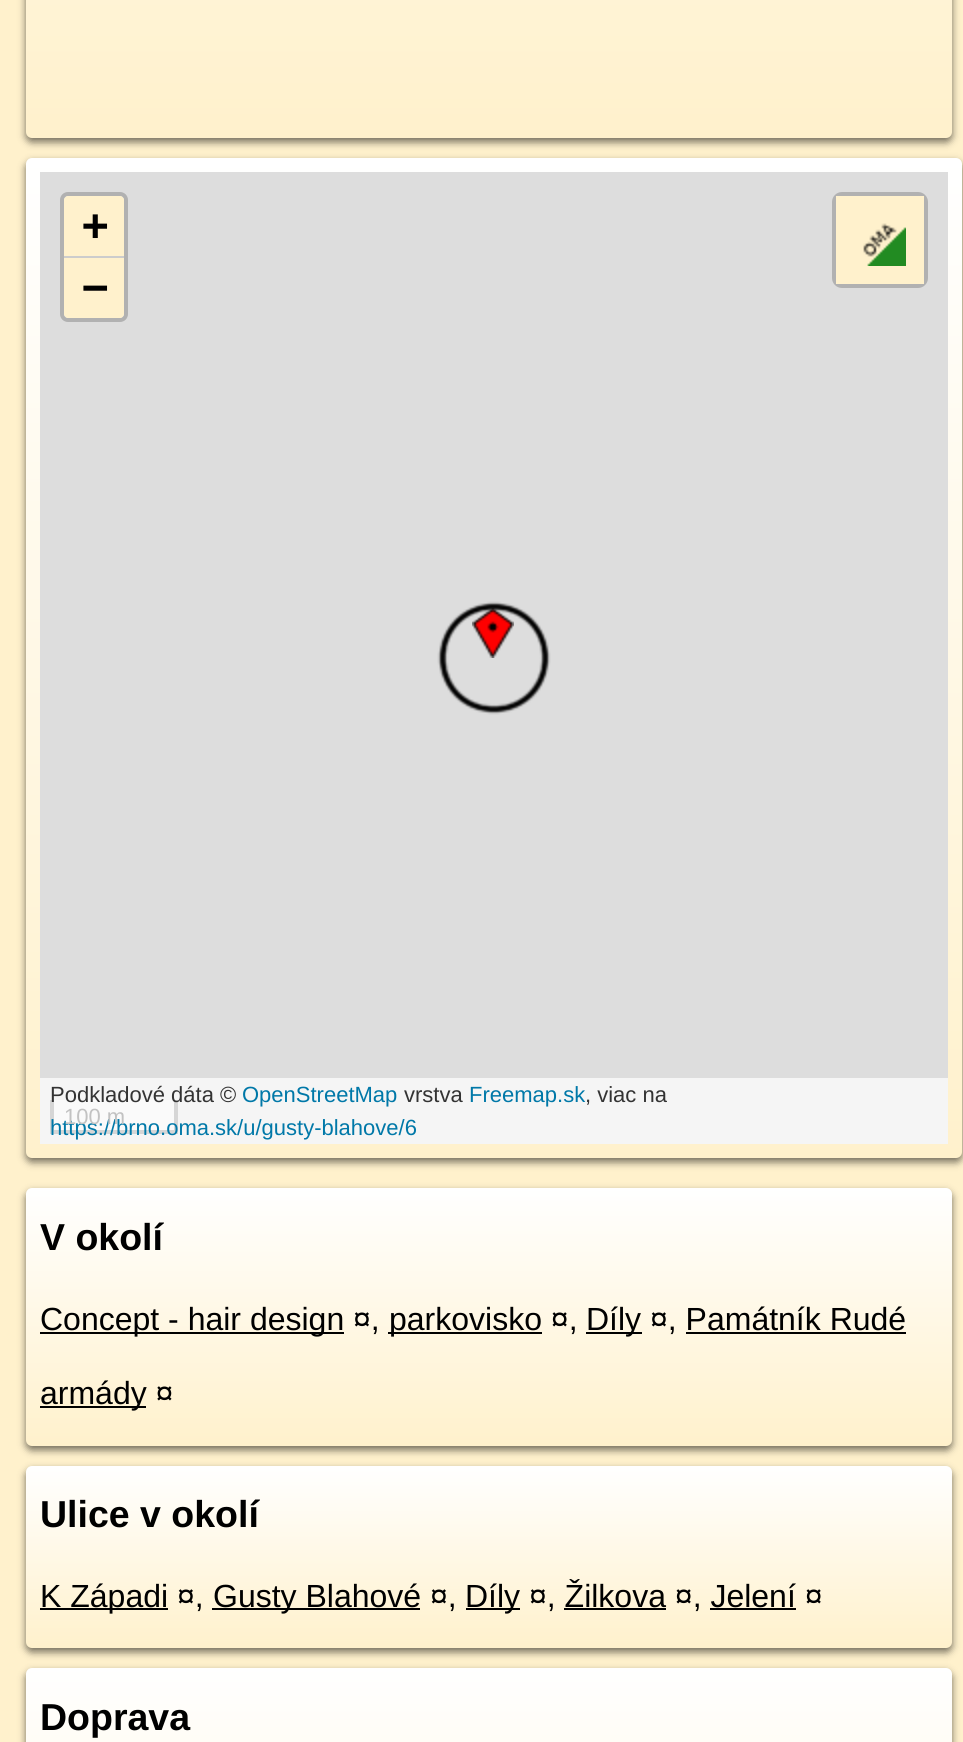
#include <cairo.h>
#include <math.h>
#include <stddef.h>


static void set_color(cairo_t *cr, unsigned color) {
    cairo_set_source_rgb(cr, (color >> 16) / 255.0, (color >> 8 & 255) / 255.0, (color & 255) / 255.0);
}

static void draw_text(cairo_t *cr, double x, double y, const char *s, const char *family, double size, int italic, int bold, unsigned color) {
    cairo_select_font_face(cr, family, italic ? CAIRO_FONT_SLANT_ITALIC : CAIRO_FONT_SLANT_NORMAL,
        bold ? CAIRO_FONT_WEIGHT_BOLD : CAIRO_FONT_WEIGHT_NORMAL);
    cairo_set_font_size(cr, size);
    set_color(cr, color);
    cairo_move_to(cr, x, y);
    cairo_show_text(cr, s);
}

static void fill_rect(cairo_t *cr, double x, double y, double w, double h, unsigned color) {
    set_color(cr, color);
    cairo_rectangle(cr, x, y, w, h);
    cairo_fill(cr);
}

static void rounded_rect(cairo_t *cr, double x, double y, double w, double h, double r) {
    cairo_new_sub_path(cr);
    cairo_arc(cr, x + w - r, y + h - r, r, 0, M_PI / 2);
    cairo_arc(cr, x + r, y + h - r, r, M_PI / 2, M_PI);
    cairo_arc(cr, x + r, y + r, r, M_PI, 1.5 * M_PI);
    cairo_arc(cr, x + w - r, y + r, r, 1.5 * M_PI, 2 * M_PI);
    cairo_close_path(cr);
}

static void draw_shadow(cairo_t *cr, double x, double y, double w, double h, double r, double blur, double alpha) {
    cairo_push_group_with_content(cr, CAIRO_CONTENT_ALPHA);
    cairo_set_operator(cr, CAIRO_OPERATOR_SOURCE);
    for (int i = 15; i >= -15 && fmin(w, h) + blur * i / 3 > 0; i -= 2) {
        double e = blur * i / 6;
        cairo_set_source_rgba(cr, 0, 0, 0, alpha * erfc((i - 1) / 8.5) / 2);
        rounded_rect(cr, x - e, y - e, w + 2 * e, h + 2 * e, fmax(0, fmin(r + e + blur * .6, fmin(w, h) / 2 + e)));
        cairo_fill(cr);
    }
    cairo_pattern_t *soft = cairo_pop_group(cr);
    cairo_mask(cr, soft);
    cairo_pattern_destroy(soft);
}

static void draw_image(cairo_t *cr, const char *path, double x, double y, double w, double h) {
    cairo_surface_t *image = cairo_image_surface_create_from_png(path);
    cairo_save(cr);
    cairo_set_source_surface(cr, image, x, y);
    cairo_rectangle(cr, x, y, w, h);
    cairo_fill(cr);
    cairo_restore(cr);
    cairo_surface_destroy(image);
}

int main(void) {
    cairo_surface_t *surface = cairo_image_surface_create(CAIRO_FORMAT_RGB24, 963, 1742);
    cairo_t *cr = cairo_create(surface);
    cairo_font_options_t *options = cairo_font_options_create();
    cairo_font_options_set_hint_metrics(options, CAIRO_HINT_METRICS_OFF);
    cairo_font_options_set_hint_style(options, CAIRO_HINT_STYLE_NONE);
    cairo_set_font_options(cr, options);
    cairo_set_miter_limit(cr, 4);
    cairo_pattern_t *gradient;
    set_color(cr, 0xFFF1CC);
    cairo_paint(cr);
    set_color(cr, 0x000000);
    draw_shadow(cr, 26, -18, 926, 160, 6, 4, 0.55);
    gradient = cairo_pattern_create_linear(489, -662, 489, 138);
    cairo_pattern_add_color_stop_rgba(gradient, 0, 1, 1, 1, 1);
    cairo_pattern_add_color_stop_rgba(gradient, 1, 1, 0.945, 0.8, 1);
    cairo_set_source(cr, gradient);
    cairo_pattern_destroy(gradient);
    rounded_rect(cr, 26, -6, 926, 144, 6);
    cairo_fill(cr);
    set_color(cr, 0x000000);
    draw_shadow(cr, 26, 162, 936, 1000, 6, 4, 0.55);
    gradient = cairo_pattern_create_linear(494, 158, 494, 1158);
    cairo_pattern_add_color_stop_rgba(gradient, 0, 1, 1, 1, 1);
    cairo_pattern_add_color_stop_rgba(gradient, 1, 1, 0.945, 0.8, 1);
    cairo_set_source(cr, gradient);
    cairo_pattern_destroy(gradient);
    rounded_rect(cr, 26, 158, 936, 1000, 6);
    cairo_fill(cr);
    fill_rect(cr, 40, 172, 908, 906, 0xDDDDDD);
    fill_rect(cr, 40, 1078, 908, 66, 0xF5F5F5);
    rounded_rect(cr, 62, 194, 64, 126, 6);
    set_color(cr, 0xB1B1B1);
    cairo_set_line_width(cr, 4);
    cairo_stroke(cr);
    set_color(cr, 0xFFF1CC);
    cairo_new_path(cr);
    cairo_move_to(cr, 68, 196);
    cairo_line_to(cr, 120, 196);
    cairo_curve_to(cr, 122, 196, 124, 198, 124, 200);
    cairo_line_to(cr, 124, 258);
    cairo_line_to(cr, 64, 258);
    cairo_line_to(cr, 64, 200);
    cairo_curve_to(cr, 64, 198, 66, 196, 68, 196);
    cairo_close_path(cr);
    cairo_fill(cr);
    fill_rect(cr, 64, 256, 60, 2, 0xCCCCCC);
    draw_text(cr, 82, 240, "+", "DejaVu Sans Mono", 44, 0, 1, 0x000000);
    set_color(cr, 0xFFF1CC);
    cairo_new_path(cr);
    cairo_move_to(cr, 64, 258);
    cairo_line_to(cr, 124, 258);
    cairo_line_to(cr, 124, 314);
    cairo_curve_to(cr, 124, 316, 122, 318, 120, 318);
    cairo_line_to(cr, 68, 318);
    cairo_curve_to(cr, 66, 318, 64, 316, 64, 314);
    cairo_close_path(cr);
    cairo_fill(cr);
    draw_text(cr, 82, 302, "−", "DejaVu Sans Mono", 44, 0, 1, 0x000000);
    rounded_rect(cr, 834, 194, 92, 92, 8);
    cairo_set_source_rgba(cr, 0, 0, 0, 0.2);
    cairo_stroke(cr);
    fill_rect(cr, 836, 196, 88, 88, 0xFFF1CC);
    draw_image(cr, "assets/img1.png", 863, 223, 43, 43);
    fill_rect(cr, 54, 1100, 120, 30, 0xFAFAFA);
    fill_rect(cr, 174, 1100, 4, 34, 0xD6D6D6);
    fill_rect(cr, 50, 1130, 128, 4, 0xD6D6D6);
    fill_rect(cr, 50, 1100, 4, 34, 0xD6D6D6);
    draw_text(cr, 50, 1102, "Podkladové dáta ©", "Liberation Sans", 22, 0, 0, 0x333333);
    draw_text(cr, 242, 1102, "OpenStreetMap", "Liberation Sans", 22, 0, 0, 0x0078A8);
    draw_text(cr, 404, 1102, "vrstva", "Liberation Sans", 22, 0, 0, 0x333333);
    draw_text(cr, 469, 1102, "Freemap.sk", "Liberation Sans", 22, 0, 0, 0x0078A8);
    draw_text(cr, 585, 1102, ", viac na", "Liberation Sans", 22, 0, 0, 0x333333);
    draw_text(cr, 50, 1135, "https://brno.oma.sk/u/gusty-blahove/6", "Liberation Sans", 22, 0, 0, 0x0078A8);
    draw_text(cr, 64, 1124, "100 m", "Liberation Sans", 22, 0, 0, 0xC2C2C2);
    draw_image(cr, "assets/img2.png", 437, 601, 114, 114);
    draw_image(cr, "assets/img3.png", 472, 608, 42, 50);
    set_color(cr, 0x000000);
    draw_shadow(cr, 26, 1192, 926, 258, 6, 4, 0.55);
    gradient = cairo_pattern_create_linear(489, 1188, 489, 1446);
    cairo_pattern_add_color_stop_rgba(gradient, 0, 1, 1, 1, 1);
    cairo_pattern_add_color_stop_rgba(gradient, 1, 1, 0.945, 0.8, 1);
    cairo_set_source(cr, gradient);
    cairo_pattern_destroy(gradient);
    rounded_rect(cr, 26, 1188, 926, 258, 6);
    cairo_fill(cr);
    draw_text(cr, 40, 1250, "V okolí", "Liberation Sans", 37.5, 0, 1, 0x000000);
    fill_rect(cr, 40, 1332, 304, 2, 0x000000);
    draw_text(cr, 40, 1330, "Concept - hair design ¤,", "Liberation Sans", 32, 0, 0, 0x000000);
    fill_rect(cr, 388, 1332, 154, 2, 0x000000);
    draw_text(cr, 389, 1330, "parkovisko ¤,", "Liberation Sans", 32, 0, 0, 0x000000);
    fill_rect(cr, 586, 1332, 56, 2, 0x000000);
    draw_text(cr, 586, 1330, "Díly ¤, Památník Rudé", "Liberation Sans", 32, 0, 0, 0x000000);
    fill_rect(cr, 40, 1406, 106, 2, 0x000000);
    draw_text(cr, 40, 1404, "armády ¤", "Liberation Sans", 32, 0, 0, 0x000000);
    fill_rect(cr, 686, 1332, 220, 2, 0x000000);
    set_color(cr, 0x000000);
    draw_shadow(cr, 26, 1470, 926, 182, 6, 4, 0.55);
    gradient = cairo_pattern_create_linear(489, 1466, 489, 1648);
    cairo_pattern_add_color_stop_rgba(gradient, 0, 1, 1, 1, 1);
    cairo_pattern_add_color_stop_rgba(gradient, 1, 1, 0.945, 0.8, 1);
    cairo_set_source(cr, gradient);
    cairo_pattern_destroy(gradient);
    rounded_rect(cr, 26, 1466, 926, 182, 6);
    cairo_fill(cr);
    draw_text(cr, 40, 1527, "Ulice v okolí", "Liberation Sans", 37.5, 0, 1, 0x000000);
    fill_rect(cr, 40, 1608, 128, 2, 0x000000);
    draw_text(cr, 40, 1607, "K Západi ¤,", "Liberation Sans", 32, 0, 0, 0x000000);
    fill_rect(cr, 212, 1608, 208, 2, 0x000000);
    draw_text(cr, 213, 1607, "Gusty Blahové ¤,", "Liberation Sans", 32, 0, 0, 0x000000);
    fill_rect(cr, 466, 1608, 54, 2, 0x000000);
    draw_text(cr, 465, 1607, "Díly ¤, Žilkova ¤, Jelení ¤", "Liberation Sans", 32, 0, 0, 0x000000);
    fill_rect(cr, 564, 1608, 102, 2, 0x000000);
    fill_rect(cr, 710, 1608, 86, 2, 0x000000);
    set_color(cr, 0x000000);
    draw_shadow(cr, 26, 1672, 926, 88, 6, 4, 0.55);
    gradient = cairo_pattern_create_linear(489, 1668, 489, 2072);
    cairo_pattern_add_color_stop_rgba(gradient, 0, 1, 1, 1, 1);
    cairo_pattern_add_color_stop_rgba(gradient, 1, 1, 0.945, 0.8, 1);
    cairo_set_source(cr, gradient);
    cairo_pattern_destroy(gradient);
    rounded_rect(cr, 26, 1668, 926, 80, 6);
    cairo_fill(cr);
    draw_text(cr, 40, 1730, "Doprava", "Liberation Sans", 37.5, 0, 1, 0x000000);
    cairo_surface_write_to_png(surface, "output.png");
    cairo_font_options_destroy(options);
    cairo_destroy(cr);
    cairo_surface_destroy(surface);
    return 0;
}
